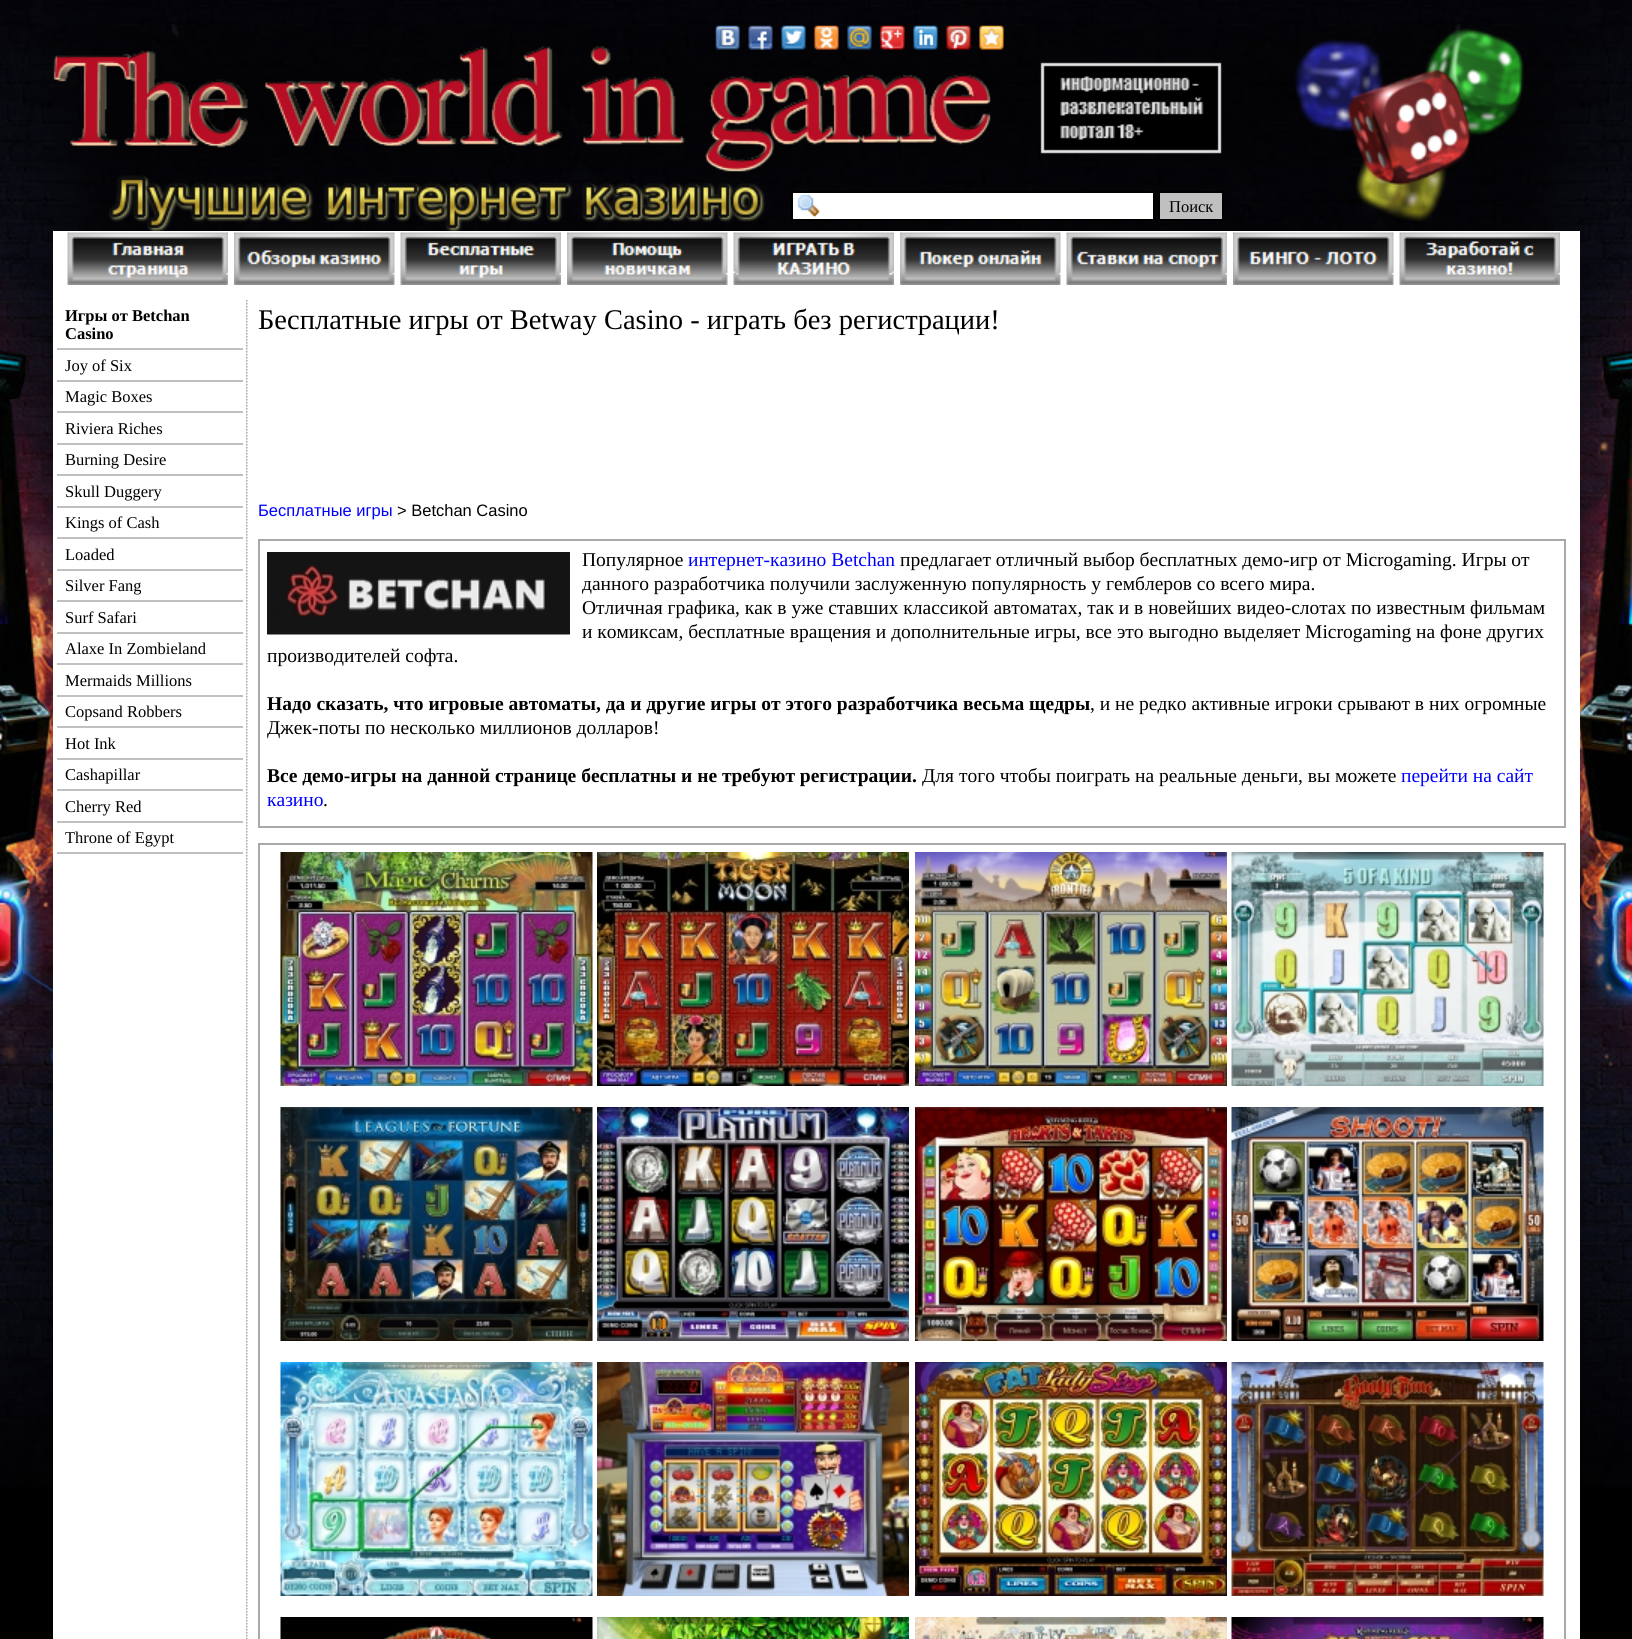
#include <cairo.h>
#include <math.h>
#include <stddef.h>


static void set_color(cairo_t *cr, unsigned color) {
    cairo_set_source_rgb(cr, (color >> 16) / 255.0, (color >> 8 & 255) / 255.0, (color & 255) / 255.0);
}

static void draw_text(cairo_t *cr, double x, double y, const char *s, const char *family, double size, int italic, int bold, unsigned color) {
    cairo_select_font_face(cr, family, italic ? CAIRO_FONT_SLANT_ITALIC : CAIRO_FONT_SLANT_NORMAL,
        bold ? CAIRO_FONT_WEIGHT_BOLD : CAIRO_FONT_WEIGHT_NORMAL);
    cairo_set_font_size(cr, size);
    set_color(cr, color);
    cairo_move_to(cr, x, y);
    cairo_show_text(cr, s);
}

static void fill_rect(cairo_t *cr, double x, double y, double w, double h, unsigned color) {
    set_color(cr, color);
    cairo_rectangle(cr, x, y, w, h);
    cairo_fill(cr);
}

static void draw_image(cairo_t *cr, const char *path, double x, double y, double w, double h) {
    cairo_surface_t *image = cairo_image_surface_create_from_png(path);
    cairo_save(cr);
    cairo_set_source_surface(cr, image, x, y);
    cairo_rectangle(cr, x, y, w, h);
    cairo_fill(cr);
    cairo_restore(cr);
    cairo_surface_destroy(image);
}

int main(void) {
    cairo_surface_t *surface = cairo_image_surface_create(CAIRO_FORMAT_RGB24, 1632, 1639);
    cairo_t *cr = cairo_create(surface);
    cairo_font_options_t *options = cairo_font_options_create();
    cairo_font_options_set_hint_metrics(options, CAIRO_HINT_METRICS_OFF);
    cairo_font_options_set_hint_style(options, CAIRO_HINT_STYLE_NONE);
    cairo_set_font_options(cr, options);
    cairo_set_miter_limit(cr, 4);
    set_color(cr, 0x000000);
    cairo_paint(cr);
    draw_image(cr, "assets/img1.png", 0, 0, 1632, 1487);
    draw_image(cr, "assets/img2.png", 53, 28, 1471, 203);
    draw_image(cr, "assets/img3.png", 715, 25, 25, 25);
    draw_image(cr, "assets/img4.png", 748, 25, 25, 25);
    draw_image(cr, "assets/img5.png", 781, 25, 25, 25);
    draw_image(cr, "assets/img6.png", 814, 25, 25, 25);
    draw_image(cr, "assets/img7.png", 847, 25, 25, 25);
    draw_image(cr, "assets/img8.png", 880, 25, 25, 25);
    draw_image(cr, "assets/img9.png", 913, 25, 25, 25);
    draw_image(cr, "assets/img10.png", 946, 25, 25, 25);
    draw_image(cr, "assets/img11.png", 979, 25, 25, 25);
    fill_rect(cr, 793, 193, 360, 26, 0xFFFFFF);
    draw_image(cr, "assets/img12.png", 797, 194, 23, 23);
    cairo_rectangle(cr, 792, 192, 362, 28);
    set_color(cr, 0x000000);
    cairo_stroke(cr);
    set_color(cr, 0xC0C0C0);
    cairo_rectangle(cr, 1159, 192, 64, 28);
    cairo_fill_preserve(cr);
    set_color(cr, 0x000000);
    cairo_stroke(cr);
    draw_text(cr, 1169, 212, "Поиск", "Liberation Serif", 16.5, 0, 0, 0x000000);
    fill_rect(cr, 53, 231, 1527, 1408, 0xFFFFFF);
    draw_image(cr, "assets/img13.png", 67, 232, 161, 53);
    draw_image(cr, "assets/img14.png", 234, 232, 161, 53);
    draw_image(cr, "assets/img15.png", 400, 232, 161, 53);
    draw_image(cr, "assets/img16.png", 567, 232, 161, 53);
    draw_image(cr, "assets/img17.png", 733, 232, 161, 53);
    draw_image(cr, "assets/img18.png", 900, 232, 161, 53);
    draw_image(cr, "assets/img19.png", 1066, 232, 161, 53);
    draw_image(cr, "assets/img20.png", 1233, 232, 161, 53);
    draw_image(cr, "assets/img21.png", 1399, 232, 161, 53);
    fill_rect(cr, 57, 348, 186, 2, 0xC0C0C0);
    draw_text(cr, 65, 321, "Игры от Betchan", "Liberation Serif", 16.5, 0, 1, 0x000000);
    draw_text(cr, 65, 339, "Casino", "Liberation Serif", 16.5, 0, 1, 0x000000);
    fill_rect(cr, 57, 380, 186, 2, 0xC0C0C0);
    draw_text(cr, 65, 371, "Joy of Six", "Liberation Serif", 16.5, 0, 0, 0x000000);
    fill_rect(cr, 57, 411, 186, 2, 0xC0C0C0);
    draw_text(cr, 65, 402, "Magic Boxes", "Liberation Serif", 16.5, 0, 0, 0x000000);
    fill_rect(cr, 57, 443, 186, 2, 0xC0C0C0);
    draw_text(cr, 65, 434, "Riviera Riches", "Liberation Serif", 16.5, 0, 0, 0x000000);
    fill_rect(cr, 57, 474, 186, 2, 0xC0C0C0);
    draw_text(cr, 65, 465, "Burning Desire", "Liberation Serif", 16.5, 0, 0, 0x000000);
    fill_rect(cr, 57, 506, 186, 2, 0xC0C0C0);
    draw_text(cr, 65, 497, "Skull Duggery", "Liberation Serif", 16.5, 0, 0, 0x000000);
    fill_rect(cr, 57, 537, 186, 2, 0xC0C0C0);
    draw_text(cr, 65, 528, "Kings of Cash", "Liberation Serif", 16.5, 0, 0, 0x000000);
    fill_rect(cr, 57, 569, 186, 2, 0xC0C0C0);
    draw_text(cr, 65, 560, "Loaded", "Liberation Serif", 16.5, 0, 0, 0x000000);
    fill_rect(cr, 57, 600, 186, 2, 0xC0C0C0);
    draw_text(cr, 65, 591, "Silver Fang", "Liberation Serif", 16.5, 0, 0, 0x000000);
    fill_rect(cr, 57, 632, 186, 2, 0xC0C0C0);
    draw_text(cr, 65, 623, "Surf Safari", "Liberation Serif", 16.5, 0, 0, 0x000000);
    fill_rect(cr, 57, 663, 186, 2, 0xC0C0C0);
    draw_text(cr, 65, 654, "Alaxe In Zombieland", "Liberation Serif", 16.5, 0, 0, 0x000000);
    fill_rect(cr, 57, 695, 186, 2, 0xC0C0C0);
    draw_text(cr, 65, 686, "Mermaids Millions", "Liberation Serif", 16.5, 0, 0, 0x000000);
    fill_rect(cr, 57, 726, 186, 2, 0xC0C0C0);
    draw_text(cr, 65, 717, "Copsand Robbers", "Liberation Serif", 16.5, 0, 0, 0x000000);
    fill_rect(cr, 57, 758, 186, 2, 0xC0C0C0);
    draw_text(cr, 65, 749, "Hot Ink", "Liberation Serif", 16.5, 0, 0, 0x000000);
    fill_rect(cr, 57, 789, 186, 2, 0xC0C0C0);
    draw_text(cr, 65, 780, "Cashapillar", "Liberation Serif", 16.5, 0, 0, 0x000000);
    fill_rect(cr, 57, 821, 186, 2, 0xC0C0C0);
    draw_text(cr, 65, 812, "Cherry Red", "Liberation Serif", 16.5, 0, 0, 0x000000);
    fill_rect(cr, 57, 852, 186, 2, 0xC0C0C0);
    draw_text(cr, 65, 843, "Throne of Egypt", "Liberation Serif", 16.5, 0, 0, 0x000000);
    draw_image(cr, "assets/img22.png", 246, 300, 2, 1339);
    draw_text(cr, 258, 329, "Бесплатные игры от Betway Casino - играть без регистрации!", "Liberation Serif", 28.5, 0, 0, 0x000000);
    draw_text(cr, 258, 516, "Бесплатные игры", "Liberation Sans", 16.5, 0, 0, 0x0000FF);
    draw_text(cr, 397, 516, "> Betchan Casino", "Liberation Sans", 16.5, 0, 0, 0x000000);
    cairo_rectangle(cr, 259, 540, 1306, 287);
    set_color(cr, 0xA8A8A8);
    cairo_stroke(cr);
    draw_image(cr, "assets/img23.png", 267, 552, 303, 83);
    draw_text(cr, 582, 566, "Популярное", "Liberation Serif", 19.5, 0, 0, 0x000000);
    draw_text(cr, 688, 566, "интернет-казино Betchan", "Liberation Serif", 19.5, 0, 0, 0x0000FF);
    draw_text(cr, 900, 566, "предлагает отличный выбор бесплатных демо-игр от Microgaming. Игры от", "Liberation Serif", 19.5, 0, 0, 0x000000);
    draw_text(cr, 582, 590, "данного разработчика получили заслуженную популярность у гемблеров со всего мира.", "Liberation Serif", 19.5, 0, 0, 0x000000);
    draw_text(cr, 582, 614, "Отличная графика, как в уже ставших классикой автоматах, так и в новейших видео-слотах по известным фильмам", "Liberation Serif", 19.5, 0, 0, 0x000000);
    draw_text(cr, 582, 638, "и комиксам, бесплатные вращения и дополнительные игры, все это выгодно выделяет Microgaming на фоне других", "Liberation Serif", 19.5, 0, 0, 0x000000);
    draw_text(cr, 267, 662, "производителей софта.", "Liberation Serif", 19.5, 0, 0, 0x000000);
    draw_text(cr, 267, 710, "Надо сказать, что игровые автоматы, да и другие игры от этого разработчика весьма щедры", "Liberation Serif", 19.5, 0, 1, 0x000000);
    draw_text(cr, 1090, 710, ", и не редко активные игроки срывают в них огромные", "Liberation Serif", 19.5, 0, 0, 0x000000);
    draw_text(cr, 267, 734, "Джек-поты по несколько миллионов долларов!", "Liberation Serif", 19.5, 0, 0, 0x000000);
    draw_text(cr, 267, 782, "Все демо-игры на данной странице бесплатны и не требуют регистрации.", "Liberation Serif", 19.5, 0, 1, 0x000000);
    draw_text(cr, 922, 782, "Для того чтобы поиграть на реальные деньги, вы можете", "Liberation Serif", 19.5, 0, 0, 0x000000);
    draw_text(cr, 1401, 782, "перейти на сайт", "Liberation Serif", 19.5, 0, 0, 0x0000FF);
    draw_text(cr, 267, 806, "казино", "Liberation Serif", 19.5, 0, 0, 0x0000FF);
    draw_text(cr, 323, 806, ".", "Liberation Serif", 19.5, 0, 0, 0x000000);
    cairo_rectangle(cr, 259, 844, 1306, 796);
    set_color(cr, 0xA8A8A8);
    cairo_stroke(cr);
    draw_image(cr, "assets/img24.png", 280, 852, 313, 234);
    draw_image(cr, "assets/img25.png", 597, 852, 312, 234);
    draw_image(cr, "assets/img26.png", 915, 852, 312, 234);
    draw_image(cr, "assets/img27.png", 1231, 852, 313, 234);
    draw_image(cr, "assets/img28.png", 280, 1107, 313, 234);
    draw_image(cr, "assets/img29.png", 597, 1107, 312, 234);
    draw_image(cr, "assets/img30.png", 915, 1107, 312, 234);
    draw_image(cr, "assets/img31.png", 1231, 1107, 313, 234);
    draw_image(cr, "assets/img32.png", 280, 1362, 313, 234);
    draw_image(cr, "assets/img33.png", 597, 1362, 312, 234);
    draw_image(cr, "assets/img34.png", 915, 1362, 312, 234);
    draw_image(cr, "assets/img35.png", 1231, 1362, 313, 234);
    draw_image(cr, "assets/img36.png", 280, 1617, 313, 22);
    draw_image(cr, "assets/img37.png", 597, 1617, 312, 22);
    draw_image(cr, "assets/img38.png", 915, 1617, 312, 22);
    draw_image(cr, "assets/img39.png", 1231, 1617, 313, 22);
    cairo_surface_write_to_png(surface, "output.png");
    cairo_font_options_destroy(options);
    cairo_destroy(cr);
    cairo_surface_destroy(surface);
    return 0;
}
